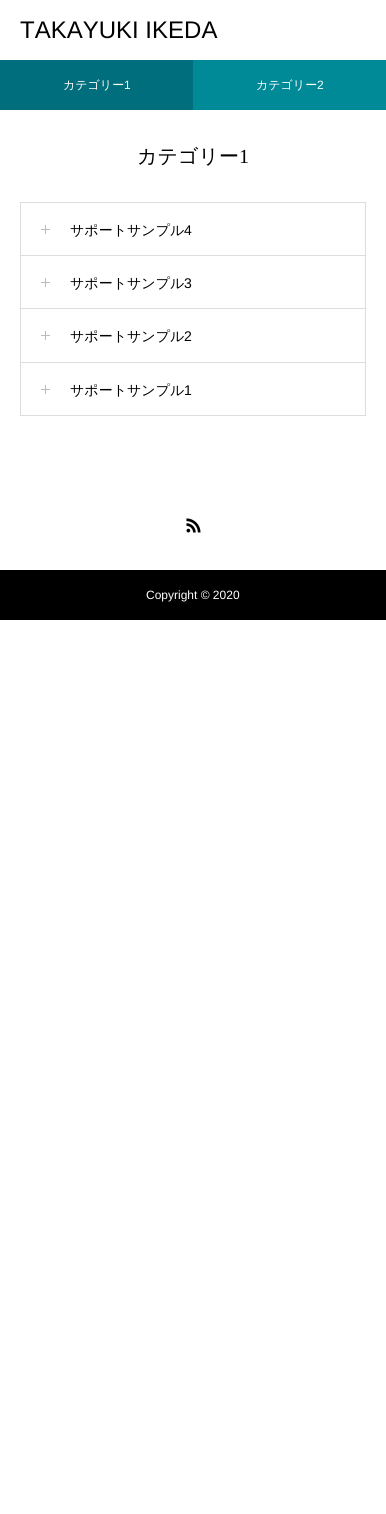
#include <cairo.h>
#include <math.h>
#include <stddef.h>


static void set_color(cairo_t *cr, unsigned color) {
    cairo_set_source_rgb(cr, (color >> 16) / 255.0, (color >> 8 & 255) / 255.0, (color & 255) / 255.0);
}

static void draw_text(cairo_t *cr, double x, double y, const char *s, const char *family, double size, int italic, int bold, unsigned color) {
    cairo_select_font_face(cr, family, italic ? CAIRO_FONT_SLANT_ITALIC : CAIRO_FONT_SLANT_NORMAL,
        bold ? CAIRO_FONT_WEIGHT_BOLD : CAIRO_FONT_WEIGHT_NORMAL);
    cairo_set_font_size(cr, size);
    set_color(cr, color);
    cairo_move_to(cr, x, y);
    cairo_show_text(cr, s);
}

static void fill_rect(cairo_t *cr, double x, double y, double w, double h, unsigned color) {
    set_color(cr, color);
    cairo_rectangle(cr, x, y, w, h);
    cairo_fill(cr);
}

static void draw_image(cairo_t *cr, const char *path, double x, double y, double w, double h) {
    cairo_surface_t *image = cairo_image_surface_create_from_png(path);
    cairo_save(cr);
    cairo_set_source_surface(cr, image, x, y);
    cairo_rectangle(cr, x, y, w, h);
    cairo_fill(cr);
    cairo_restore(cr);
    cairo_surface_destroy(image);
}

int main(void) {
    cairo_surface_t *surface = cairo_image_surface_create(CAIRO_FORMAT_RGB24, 386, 1514);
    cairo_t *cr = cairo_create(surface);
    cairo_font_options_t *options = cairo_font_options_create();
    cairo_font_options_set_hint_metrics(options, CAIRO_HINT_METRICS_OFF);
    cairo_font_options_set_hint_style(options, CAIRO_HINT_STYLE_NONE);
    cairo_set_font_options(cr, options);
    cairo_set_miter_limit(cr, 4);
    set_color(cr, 0xFFFFFF);
    cairo_paint(cr);
    draw_text(cr, 20, 38, "TAKAYUKI IKEDA", "Liberation Sans", 24, 0, 0, 0x000000);
    fill_rect(cr, 193, 60, 193, 50, 0x008A98);
    fill_rect(cr, 0, 60, 193, 50, 0x006E7C);
    draw_text(cr, 63, 89, "カテゴリー", "WenQuanYi Zen Hei Medium", 12, 0, 0, 0xFFFFFF);
    draw_text(cr, 124, 89, "1", "Liberation Sans", 12, 0, 0, 0xFFFFFF);
    draw_text(cr, 256, 89, "カテゴリー", "WenQuanYi Zen Hei Medium", 12, 0, 0, 0xFFFFFF);
    draw_text(cr, 317, 89, "2", "Liberation Sans", 12, 0, 0, 0xFFFFFF);
    draw_text(cr, 137, 163, "カテゴリー", "WenQuanYi Zen Hei Medium", 20, 0, 0, 0x000000);
    draw_text(cr, 239, 163, "1", "Liberation Serif", 20, 0, 0, 0x000000);
    cairo_rectangle(cr, 20.5, 202.5, 345, 53);
    set_color(cr, 0xDDDDDD);
    cairo_set_line_width(cr, 1);
    cairo_stroke(cr);
    fill_rect(cr, 41, 229, 9, 1, 0xBBBBBB);
    fill_rect(cr, 45, 225, 1, 9, 0xBBBBBB);
    draw_text(cr, 70, 235, "サポートサンプル", "WenQuanYi Zen Hei Medium", 14, 0, 0, 0x000000);
    draw_text(cr, 184, 235, "4", "Liberation Sans", 14, 0, 0, 0x000000);
    cairo_rectangle(cr, 20.5, 255.5, 345, 53);
    set_color(cr, 0xDDDDDD);
    cairo_stroke(cr);
    fill_rect(cr, 41, 282, 9, 1, 0xBBBBBB);
    fill_rect(cr, 45, 278, 1, 9, 0xBBBBBB);
    draw_text(cr, 70, 288, "サポートサンプル", "WenQuanYi Zen Hei Medium", 14, 0, 0, 0x000000);
    draw_text(cr, 184, 288, "3", "Liberation Sans", 14, 0, 0, 0x000000);
    cairo_rectangle(cr, 20.5, 308.5, 345, 54);
    set_color(cr, 0xDDDDDD);
    cairo_stroke(cr);
    fill_rect(cr, 41, 335, 9, 1, 0xBBBBBB);
    fill_rect(cr, 45, 331, 1, 9, 0xBBBBBB);
    draw_text(cr, 70, 341, "サポートサンプル", "WenQuanYi Zen Hei Medium", 14, 0, 0, 0x000000);
    draw_text(cr, 184, 341, "2", "Liberation Sans", 14, 0, 0, 0x000000);
    cairo_rectangle(cr, 20.5, 362.5, 345, 53);
    set_color(cr, 0xDDDDDD);
    cairo_stroke(cr);
    fill_rect(cr, 41, 389, 9, 1, 0xBBBBBB);
    fill_rect(cr, 45, 385, 1, 9, 0xBBBBBB);
    draw_text(cr, 70, 395, "サポートサンプル", "WenQuanYi Zen Hei Medium", 14, 0, 0, 0x000000);
    draw_text(cr, 184, 395, "1", "Liberation Sans", 14, 0, 0, 0x000000);
    draw_image(cr, "assets/img1.png", 186, 518, 15, 15);
    fill_rect(cr, 0, 570, 386, 50, 0x000000);
    draw_text(cr, 146, 599, "Copyright © 2020", "Liberation Sans", 12, 0, 0, 0xFFFFFF);
    cairo_surface_write_to_png(surface, "output.png");
    cairo_font_options_destroy(options);
    cairo_destroy(cr);
    cairo_surface_destroy(surface);
    return 0;
}
